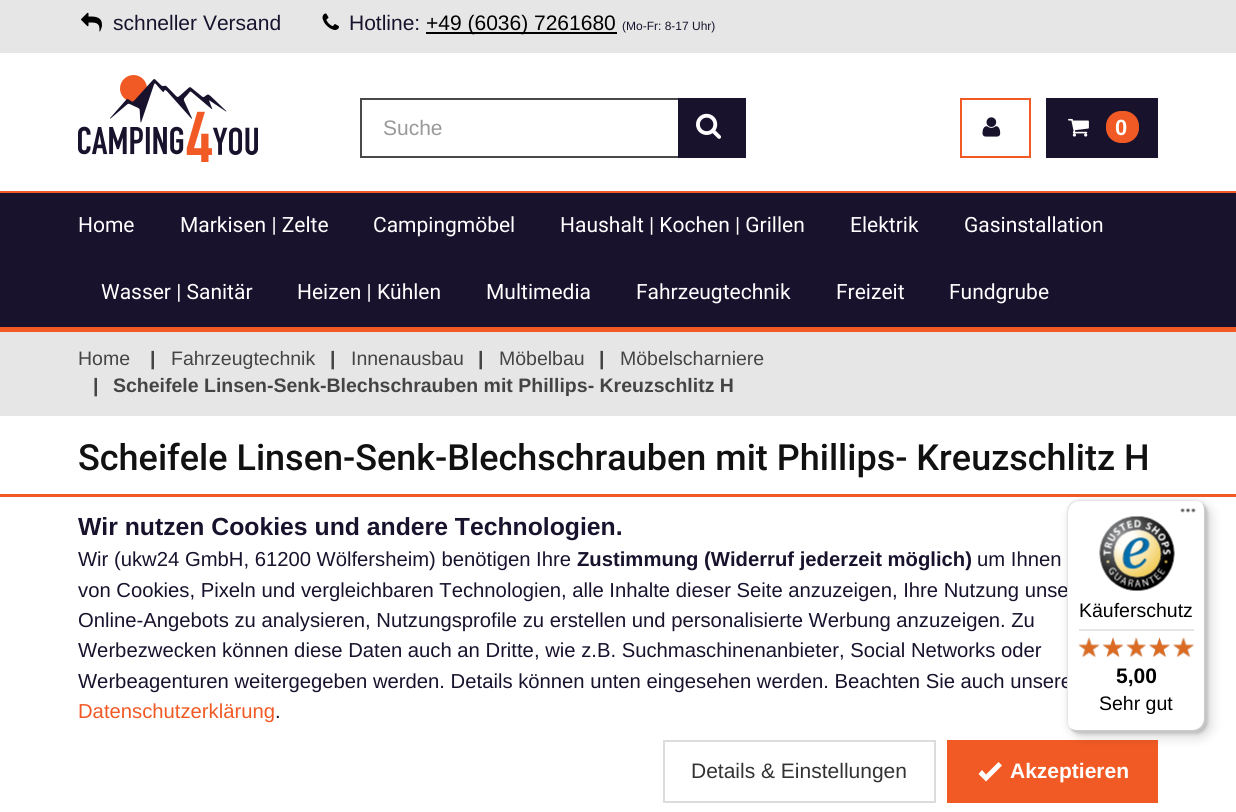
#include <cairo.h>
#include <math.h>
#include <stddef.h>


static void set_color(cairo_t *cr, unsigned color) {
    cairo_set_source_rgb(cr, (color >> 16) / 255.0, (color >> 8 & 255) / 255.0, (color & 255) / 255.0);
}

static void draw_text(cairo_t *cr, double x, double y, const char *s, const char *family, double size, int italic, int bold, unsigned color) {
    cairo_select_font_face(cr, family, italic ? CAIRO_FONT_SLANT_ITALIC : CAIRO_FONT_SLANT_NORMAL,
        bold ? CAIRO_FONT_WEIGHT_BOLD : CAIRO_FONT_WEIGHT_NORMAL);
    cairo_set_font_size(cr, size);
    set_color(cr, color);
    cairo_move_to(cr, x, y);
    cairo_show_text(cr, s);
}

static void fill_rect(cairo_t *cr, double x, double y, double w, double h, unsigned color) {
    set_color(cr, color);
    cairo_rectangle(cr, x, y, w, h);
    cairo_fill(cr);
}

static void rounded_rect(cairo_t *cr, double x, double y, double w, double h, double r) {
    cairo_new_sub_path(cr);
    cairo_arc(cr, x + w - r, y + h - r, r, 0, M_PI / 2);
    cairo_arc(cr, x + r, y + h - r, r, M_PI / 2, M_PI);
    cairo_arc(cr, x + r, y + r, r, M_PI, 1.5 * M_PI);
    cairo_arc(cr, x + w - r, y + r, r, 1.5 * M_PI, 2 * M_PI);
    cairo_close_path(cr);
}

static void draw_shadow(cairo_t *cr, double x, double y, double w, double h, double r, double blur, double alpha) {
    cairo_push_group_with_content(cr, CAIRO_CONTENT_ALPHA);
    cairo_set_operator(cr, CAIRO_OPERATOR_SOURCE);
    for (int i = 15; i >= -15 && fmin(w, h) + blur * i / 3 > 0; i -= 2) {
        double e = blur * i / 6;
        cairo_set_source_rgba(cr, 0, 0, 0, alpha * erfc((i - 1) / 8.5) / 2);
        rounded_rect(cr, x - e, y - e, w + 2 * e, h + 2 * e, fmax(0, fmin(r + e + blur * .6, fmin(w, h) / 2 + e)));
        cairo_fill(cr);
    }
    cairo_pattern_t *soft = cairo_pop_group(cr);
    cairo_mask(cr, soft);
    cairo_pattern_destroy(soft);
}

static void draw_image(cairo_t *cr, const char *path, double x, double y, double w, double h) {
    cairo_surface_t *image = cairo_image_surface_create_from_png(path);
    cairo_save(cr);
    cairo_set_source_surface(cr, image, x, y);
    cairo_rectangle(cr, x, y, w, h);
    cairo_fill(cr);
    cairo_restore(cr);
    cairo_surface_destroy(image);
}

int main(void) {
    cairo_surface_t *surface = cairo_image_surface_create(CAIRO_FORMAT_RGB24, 1236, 812);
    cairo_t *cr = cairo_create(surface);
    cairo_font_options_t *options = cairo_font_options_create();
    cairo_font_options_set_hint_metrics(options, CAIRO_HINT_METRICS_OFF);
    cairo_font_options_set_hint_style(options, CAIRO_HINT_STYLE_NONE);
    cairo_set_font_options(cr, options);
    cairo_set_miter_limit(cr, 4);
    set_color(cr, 0xFFFFFF);
    cairo_paint(cr);
    fill_rect(cr, 0, 0, 1236, 53, 0xE6E6E6);
    draw_image(cr, "assets/img1.png", 81, 12, 21, 20);
    draw_text(cr, 113, 30, "schneller Versand", "Liberation Sans", 21, 0, 0, 0x19122D);
    draw_image(cr, "assets/img2.png", 322, 13, 17, 17);
    draw_text(cr, 349, 30, "Hotline:", "Liberation Sans", 21, 0, 0, 0x19122D);
    fill_rect(cr, 426, 32, 191, 2, 0x000000);
    draw_text(cr, 426, 30, "+49 (6036) 7261680", "Liberation Sans", 21, 0, 0, 0x000000);
    draw_text(cr, 622, 30, "(Mo-Fr: 8-17 Uhr)", "Liberation Sans", 12, 0, 0, 0x19122D);
    draw_image(cr, "assets/img3.png", 78, 75, 180, 87);
    fill_rect(cr, 360, 98, 320, 2, 0x494949);
    fill_rect(cr, 360, 156, 320, 2, 0x494949);
    fill_rect(cr, 360, 98, 2, 60, 0x494949);
    draw_text(cr, 383, 135, "Suche", "Liberation Sans", 21, 0, 0, 0x999999);
    fill_rect(cr, 678, 98, 68, 60, 0x19122D);
    draw_image(cr, "assets/img4.png", 696, 113, 25, 26);
    cairo_rectangle(cr, 961, 99, 69, 58);
    set_color(cr, 0xF15A24);
    cairo_stroke(cr);
    draw_image(cr, "assets/img5.png", 982, 117, 19, 20);
    fill_rect(cr, 1046, 98, 112, 60, 0x19122D);
    draw_image(cr, "assets/img6.png", 1068, 118, 21, 19);
    set_color(cr, 0xF15A24);
    rounded_rect(cr, 1106, 111, 33, 32, 15);
    cairo_fill(cr);
    draw_text(cr, 1115, 135, "0", "Liberation Sans", 22, 0, 1, 0xFFFFFF);
    fill_rect(cr, 0, 193, 1236, 134, 0x19122D);
    fill_rect(cr, 0, 191, 1236, 2, 0xF15A24);
    fill_rect(cr, 0, 327, 1236, 5, 0xF15A24);
    draw_text(cr, 78, 232, "Home", "Roboto", 21, 0, 0, 0xFFFFFF);
    draw_text(cr, 180, 232, "Markisen | Zelte", "Roboto", 21, 0, 0, 0xFFFFFF);
    draw_text(cr, 373, 232, "Campingmöbel", "Roboto", 21, 0, 0, 0xFFFFFF);
    draw_text(cr, 560, 232, "Haushalt | Kochen | Grillen", "Roboto", 21, 0, 0, 0xFFFFFF);
    draw_text(cr, 850, 232, "Elektrik", "Roboto", 21, 0, 0, 0xFFFFFF);
    draw_text(cr, 964, 232, "Gasinstallation", "Roboto", 21, 0, 0, 0xFFFFFF);
    draw_text(cr, 101, 299, "Wasser | Sanitär", "Roboto", 21, 0, 0, 0xFFFFFF);
    draw_text(cr, 297, 299, "Heizen | Kühlen", "Roboto", 21, 0, 0, 0xFFFFFF);
    draw_text(cr, 486, 299, "Multimedia", "Roboto", 21, 0, 0, 0xFFFFFF);
    draw_text(cr, 636, 299, "Fahrzeugtechnik", "Roboto", 21, 0, 0, 0xFFFFFF);
    draw_text(cr, 836, 299, "Freizeit", "Roboto", 21, 0, 0, 0xFFFFFF);
    draw_text(cr, 949, 299, "Fundgrube", "Roboto", 21, 0, 0, 0xFFFFFF);
    fill_rect(cr, 0, 332, 1236, 84, 0xE6E6E6);
    draw_text(cr, 78, 365, "Home", "Liberation Sans", 19.5, 0, 0, 0x444444);
    draw_text(cr, 150, 365, "|", "Liberation Sans", 19.5, 0, 1, 0x444444);
    draw_text(cr, 171, 365, "Fahrzeugtechnik", "Liberation Sans", 19.5, 0, 0, 0x444444);
    draw_text(cr, 330, 365, "|", "Liberation Sans", 19.5, 0, 1, 0x444444);
    draw_text(cr, 351, 365, "Innenausbau", "Liberation Sans", 19.5, 0, 0, 0x444444);
    draw_text(cr, 478, 365, "|", "Liberation Sans", 19.5, 0, 1, 0x444444);
    draw_text(cr, 499, 365, "Möbelbau", "Liberation Sans", 19.5, 0, 0, 0x444444);
    draw_text(cr, 599, 365, "|", "Liberation Sans", 19.5, 0, 1, 0x444444);
    draw_text(cr, 620, 365, "Möbelscharniere", "Liberation Sans", 19.5, 0, 0, 0x444444);
    draw_text(cr, 93, 392, "|", "Liberation Sans", 19.5, 0, 1, 0x444444);
    draw_text(cr, 113, 392, "Scheifele Linsen-Senk-Blechschrauben mit Phillips- Kreuzschlitz H", "Liberation Sans", 19.5, 0, 1, 0x444444);
    draw_text(cr, 78, 470, "Scheifele Linsen-Senk-Blechschrauben mit Phillips- Kreuzschlitz H", "Roboto Medium", 36, 0, 0, 0x111111);
    fill_rect(cr, 0, 494, 1236, 3, 0xF15A24);
    draw_text(cr, 78, 535, "Wir nutzen Cookies und andere Technologien.", "Liberation Sans", 24.75, 0, 1, 0x19122D);
    draw_text(cr, 78, 566, "Wir (ukw24 GmbH, 61200 Wölfersheim) benötigen Ihre", "Liberation Sans", 20.25, 0, 0, 0x19122D);
    draw_text(cr, 577, 566, "Zustimmung (Widerruf jederzeit möglich)", "Liberation Sans", 20.25, 0, 1, 0x19122D);
    draw_text(cr, 977, 566, "um Ihnen", "Liberation Sans", 20.25, 0, 0, 0x19122D);
    draw_text(cr, 78, 597, "von Cookies, Pixeln und vergleichbaren Technologien, alle Inhalte dieser Seite anzuzeigen, Ihre Nutzung unse", "Liberation Sans", 20.25, 0, 0, 0x19122D);
    draw_text(cr, 78, 627, "Online-Angebots zu analysieren, Nutzungsprofile zu erstellen und personalisierte Werbung anzuzeigen. Zu", "Liberation Sans", 20.25, 0, 0, 0x19122D);
    draw_text(cr, 78, 657, "Werbezwecken können diese Daten auch an Dritte, wie z.B. Suchmaschinenanbieter, Social Networks oder", "Liberation Sans", 20.25, 0, 0, 0x19122D);
    draw_text(cr, 78, 688, "Werbeagenturen weitergegeben werden. Details können unten eingesehen werden. Beachten Sie auch unsere", "Liberation Sans", 20.25, 0, 0, 0x19122D);
    draw_text(cr, 78, 718, "Datenschutzerklärung", "Liberation Sans", 20.25, 0, 0, 0xF15A24);
    draw_text(cr, 275, 718, ".", "Liberation Sans", 20.25, 0, 0, 0x19122D);
    cairo_rectangle(cr, 664, 741, 271, 61);
    set_color(cr, 0xDCDCDC);
    cairo_stroke(cr);
    draw_text(cr, 691, 778, "Details & Einstellungen", "Liberation Sans", 21, 0, 0, 0x333333);
    fill_rect(cr, 947, 740, 211, 63, 0xF15A24);
    set_color(cr, 0xFFFFFF);
    cairo_new_path(cr);
    cairo_move_to(cr, 986, 781.5);
    cairo_line_to(cr, 978.5, 774);
    cairo_line_to(cr, 982, 770);
    cairo_line_to(cr, 986, 774.5);
    cairo_line_to(cr, 998.5, 762);
    cairo_line_to(cr, 1002, 765.5);
    cairo_close_path(cr);
    cairo_fill(cr);
    draw_text(cr, 1010, 778, "Akzeptieren", "Liberation Sans", 21, 0, 1, 0xFFFFFF);
    set_color(cr, 0x000000);
    draw_shadow(cr, 1071, 504, 140, 233, 12, 6, 0.15);
    draw_shadow(cr, 1068, 501, 140, 233, 12, 1.5, 0.15);
    set_color(cr, 0xFFFFFF);
    rounded_rect(cr, 1067, 500, 139, 232, 12);
    cairo_fill(cr);
    set_color(cr, 0xE5E5E5);
    cairo_new_path(cr);
    cairo_move_to(cr, 1080, 501);
    cairo_line_to(cr, 1196, 501);
    cairo_line_to(cr, 1201, 502);
    cairo_curve_to(cr, 1199, 501, 1196, 500, 1194, 500);
    cairo_line_to(cr, 1079, 500);
    cairo_curve_to(cr, 1072, 500, 1067, 505, 1067, 512);
    cairo_line_to(cr, 1067, 720);
    cairo_curve_to(cr, 1067, 722, 1068, 725, 1069, 727);
    cairo_line_to(cr, 1068, 722);
    cairo_line_to(cr, 1068, 513);
    cairo_curve_to(cr, 1068, 506, 1073, 501, 1080, 501);
    cairo_close_path(cr);
    cairo_fill(cr);
    cairo_set_source_rgba(cr, 0, 0, 0, 0.2);
    cairo_new_path(cr);
    cairo_move_to(cr, 1070, 728);
    cairo_curve_to(cr, 1072, 730, 1075, 732, 1079, 732);
    cairo_line_to(cr, 1194, 732);
    cairo_curve_to(cr, 1201, 732, 1206, 727, 1206, 720);
    cairo_line_to(cr, 1206, 512);
    cairo_curve_to(cr, 1206, 508, 1204, 505, 1202, 503);
    cairo_curve_to(cr, 1203, 505, 1204, 507, 1204, 510);
    cairo_line_to(cr, 1204, 718);
    cairo_curve_to(cr, 1204, 725, 1199, 730, 1192, 730);
    cairo_line_to(cr, 1077, 730);
    cairo_curve_to(cr, 1074, 730, 1072, 729, 1070, 728);
    cairo_close_path(cr);
    cairo_fill(cr);
    cairo_set_source_rgba(cr, 0.196, 0.196, 0.196, 0.2);
    cairo_new_path(cr);
    cairo_move_to(cr, 1071, 729);
    cairo_curve_to(cr, 1073, 731, 1076, 732, 1079, 732);
    cairo_line_to(cr, 1194, 732);
    cairo_curve_to(cr, 1201, 732, 1206, 727, 1206, 720);
    cairo_line_to(cr, 1206, 512);
    cairo_curve_to(cr, 1206, 509, 1205, 506, 1203, 504);
    cairo_curve_to(cr, 1204, 506, 1205, 508, 1205, 511);
    cairo_line_to(cr, 1205, 719);
    cairo_curve_to(cr, 1205, 726, 1200, 731, 1193, 731);
    cairo_line_to(cr, 1078, 731);
    cairo_curve_to(cr, 1075, 731, 1073, 730, 1071, 729);
    cairo_close_path(cr);
    cairo_fill(cr);
    cairo_set_source_rgba(cr, 1, 1, 1, 0.3);
    cairo_new_path(cr);
    cairo_move_to(cr, 1071, 729);
    cairo_curve_to(cr, 1073, 731, 1076, 732, 1079, 732);
    cairo_line_to(cr, 1194, 732);
    cairo_curve_to(cr, 1201, 732, 1206, 727, 1206, 720);
    cairo_line_to(cr, 1206, 512);
    cairo_curve_to(cr, 1206, 509, 1205, 506, 1203, 504);
    cairo_curve_to(cr, 1204, 506, 1205, 508, 1205, 511);
    cairo_line_to(cr, 1205, 719);
    cairo_curve_to(cr, 1205, 726, 1200, 731, 1193, 731);
    cairo_line_to(cr, 1078, 731);
    cairo_curve_to(cr, 1075, 731, 1073, 730, 1071, 729);
    cairo_close_path(cr);
    cairo_fill(cr);
    draw_image(cr, "assets/img7.png", 1180, 508, 16, 5);
    draw_image(cr, "assets/img8.png", 1099, 516, 76, 75);
    draw_text(cr, 1079, 617, "Käuferschutz", "Liberation Sans", 19.5, 0, 0, 0x000000);
    fill_rect(cr, 1079, 629, 115, 2, 0xE5E5E5);
    draw_image(cr, "assets/img14.png", 1079, 638, 20, 19);
    draw_image(cr, "assets/img9.png", 1078, 637, 22, 20);
    draw_image(cr, "assets/img15.png", 1103, 637, 20, 20);
    draw_image(cr, "assets/img10.png", 1103, 637, 20, 20);
    draw_image(cr, "assets/img16.png", 1126, 637, 20, 20);
    draw_image(cr, "assets/img11.png", 1126, 637, 20, 20);
    draw_image(cr, "assets/img17.png", 1149, 637, 21, 20);
    draw_image(cr, "assets/img12.png", 1149, 637, 21, 20);
    draw_image(cr, "assets/img18.png", 1173, 638, 21, 19);
    draw_image(cr, "assets/img13.png", 1173, 637, 21, 20);
    draw_text(cr, 1116, 683, "5,00", "Liberation Sans", 21, 0, 1, 0x000000);
    draw_text(cr, 1099, 710, "Sehr gut", "Liberation Sans", 19.5, 0, 0, 0x000000);
    cairo_surface_write_to_png(surface, "output.png");
    cairo_font_options_destroy(options);
    cairo_destroy(cr);
    cairo_surface_destroy(surface);
    return 0;
}
